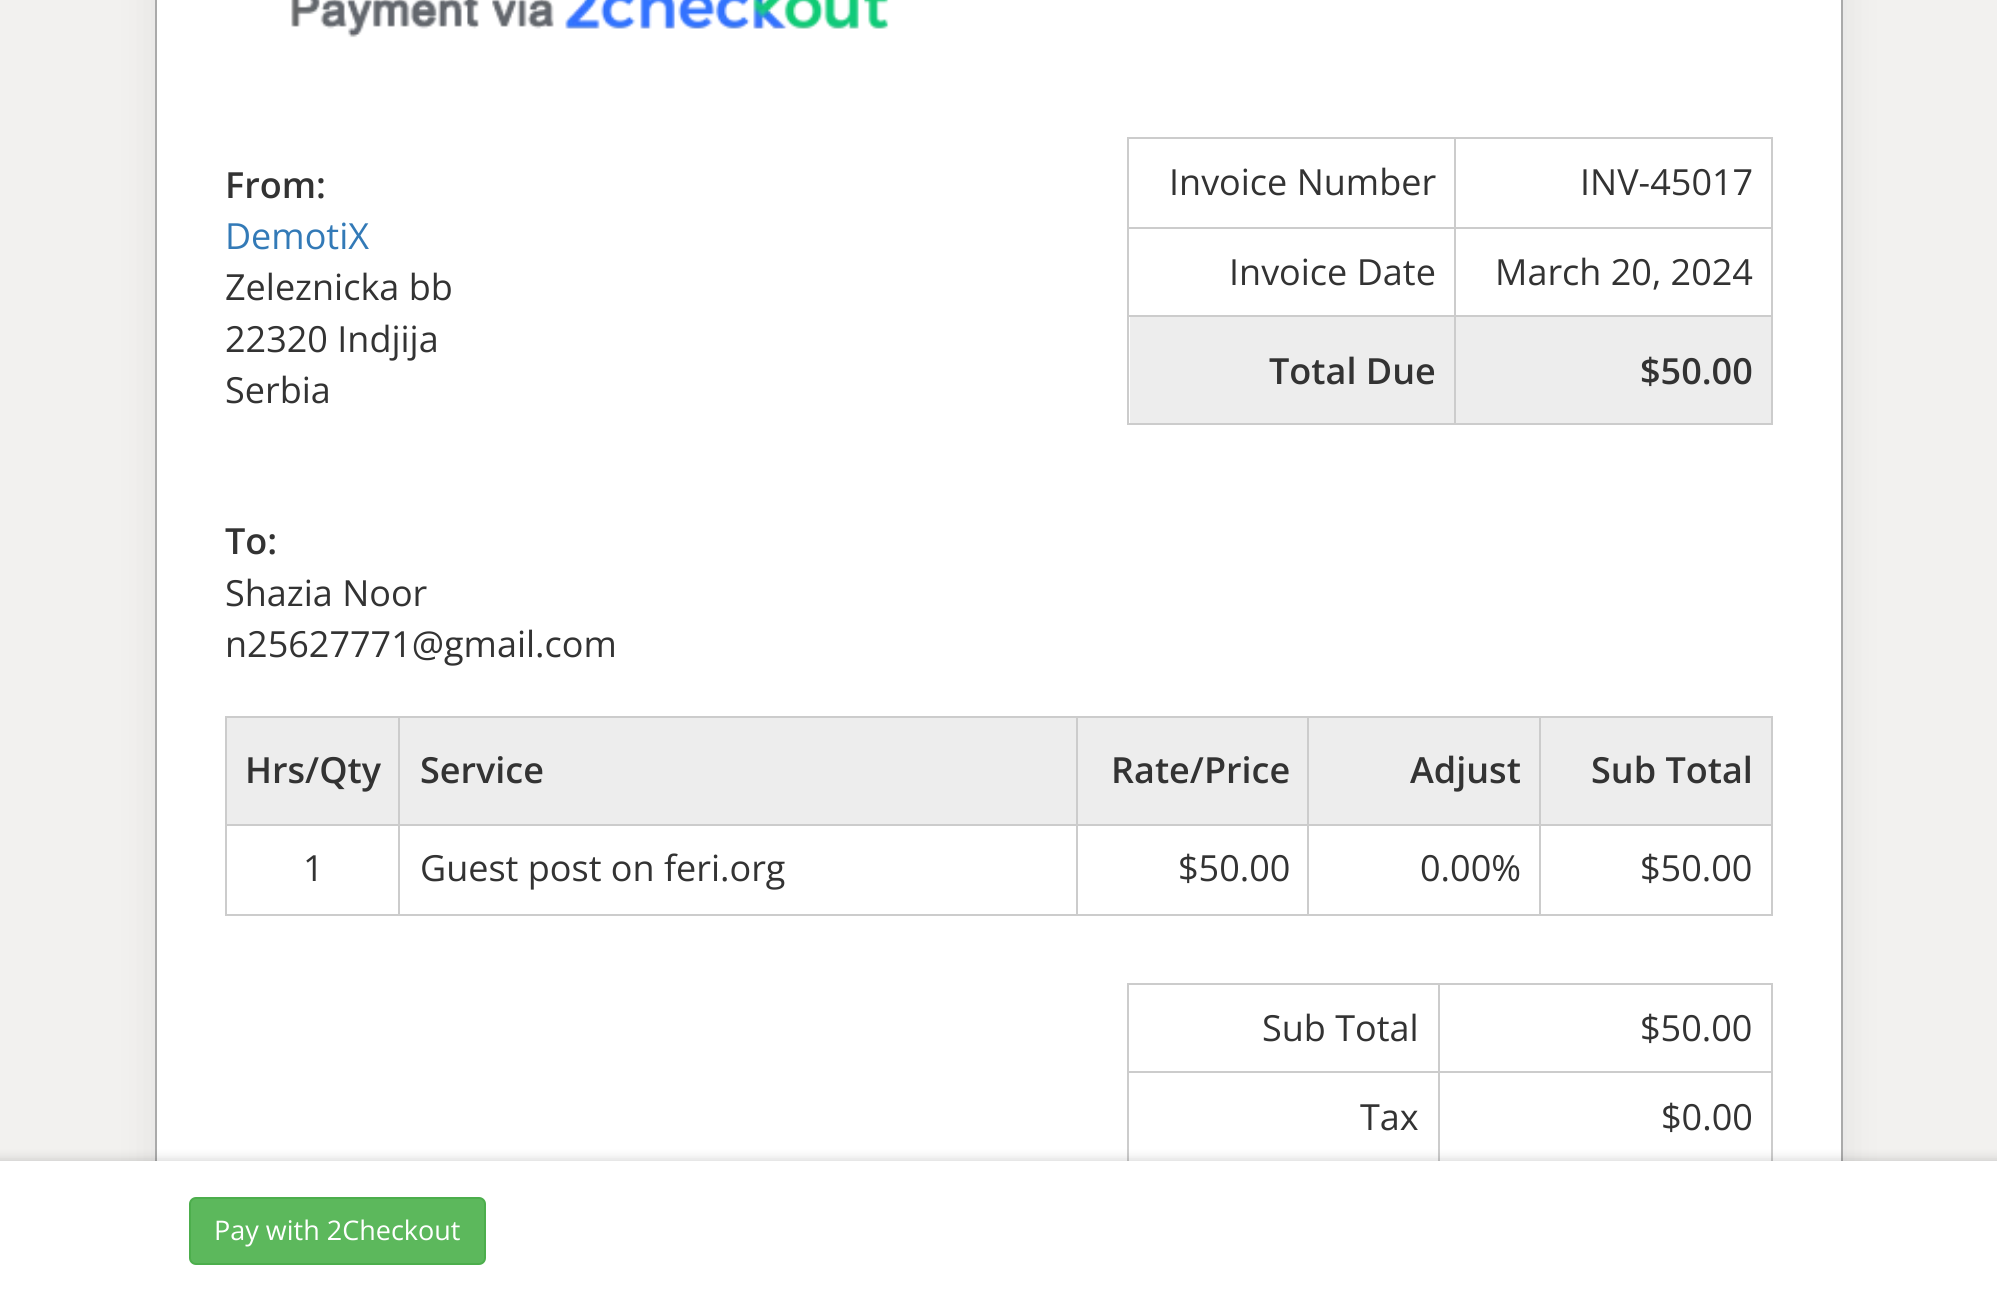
#include <cairo.h>
#include <math.h>
#include <stddef.h>


static void set_color(cairo_t *cr, unsigned color) {
    cairo_set_source_rgb(cr, (color >> 16) / 255.0, (color >> 8 & 255) / 255.0, (color & 255) / 255.0);
}

static void draw_text(cairo_t *cr, double x, double y, const char *s, const char *family, double size, int italic, int bold, unsigned color) {
    cairo_select_font_face(cr, family, italic ? CAIRO_FONT_SLANT_ITALIC : CAIRO_FONT_SLANT_NORMAL,
        bold ? CAIRO_FONT_WEIGHT_BOLD : CAIRO_FONT_WEIGHT_NORMAL);
    cairo_set_font_size(cr, size);
    set_color(cr, color);
    cairo_move_to(cr, x, y);
    cairo_show_text(cr, s);
}

static void fill_rect(cairo_t *cr, double x, double y, double w, double h, unsigned color) {
    set_color(cr, color);
    cairo_rectangle(cr, x, y, w, h);
    cairo_fill(cr);
}

static void rounded_rect(cairo_t *cr, double x, double y, double w, double h, double r) {
    cairo_new_sub_path(cr);
    cairo_arc(cr, x + w - r, y + h - r, r, 0, M_PI / 2);
    cairo_arc(cr, x + r, y + h - r, r, M_PI / 2, M_PI);
    cairo_arc(cr, x + r, y + r, r, M_PI, 1.5 * M_PI);
    cairo_arc(cr, x + w - r, y + r, r, 1.5 * M_PI, 2 * M_PI);
    cairo_close_path(cr);
}

static void draw_shadow(cairo_t *cr, double x, double y, double w, double h, double r, double blur, double alpha) {
    cairo_push_group_with_content(cr, CAIRO_CONTENT_ALPHA);
    cairo_set_operator(cr, CAIRO_OPERATOR_SOURCE);
    for (int i = 15; i >= -15 && fmin(w, h) + blur * i / 3 > 0; i -= 2) {
        double e = blur * i / 6;
        cairo_set_source_rgba(cr, 0, 0, 0, alpha * erfc((i - 1) / 8.5) / 2);
        rounded_rect(cr, x - e, y - e, w + 2 * e, h + 2 * e, fmax(0, fmin(r + e + blur * .6, fmin(w, h) / 2 + e)));
        cairo_fill(cr);
    }
    cairo_pattern_t *soft = cairo_pop_group(cr);
    cairo_mask(cr, soft);
    cairo_pattern_destroy(soft);
}

static void draw_image(cairo_t *cr, const char *path, double x, double y, double w, double h) {
    cairo_surface_t *image = cairo_image_surface_create_from_png(path);
    cairo_save(cr);
    cairo_set_source_surface(cr, image, x, y);
    cairo_rectangle(cr, x, y, w, h);
    cairo_fill(cr);
    cairo_restore(cr);
    cairo_surface_destroy(image);
}

int main(void) {
    cairo_surface_t *surface = cairo_image_surface_create(CAIRO_FORMAT_RGB24, 1997, 1298);
    cairo_t *cr = cairo_create(surface);
    cairo_font_options_t *options = cairo_font_options_create();
    cairo_font_options_set_hint_metrics(options, CAIRO_HINT_METRICS_OFF);
    cairo_font_options_set_hint_style(options, CAIRO_HINT_STYLE_NONE);
    cairo_set_font_options(cr, options);
    cairo_set_miter_limit(cr, 4);
    set_color(cr, 0xF2F1EF);
    cairo_paint(cr);
    set_color(cr, 0x000000);
    draw_shadow(cr, 155, -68, 1688, 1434, 0, 22.5, 0.07);
    fill_rect(cr, 157, 0, 1684, 1161, 0xFFFFFF);
    cairo_rectangle(cr, 156, -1, 1686, 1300);
    set_color(cr, 0xAAAAAA);
    cairo_stroke(cr);
    draw_image(cr, "assets/img1.png", 291, 0, 598, 38);
    draw_text(cr, 225, 198, "From:", "Open Sans SemiBold", 36, 0, 0, 0x333333);
    draw_text(cr, 225, 249, "DemotiX", "Open Sans", 36, 0, 0, 0x337AB7);
    draw_text(cr, 225, 300, "Zeleznicka bb", "Open Sans", 36, 0, 0, 0x333333);
    draw_text(cr, 225, 352, "22320 Indjija", "Open Sans", 36, 0, 0, 0x333333);
    draw_text(cr, 225, 403, "Serbia", "Open Sans", 36, 0, 0, 0x333333);
    fill_rect(cr, 1127, 137, 646, 2, 0xCCCCCC);
    fill_rect(cr, 1771, 137, 2, 288, 0xCCCCCC);
    fill_rect(cr, 1127, 423, 646, 2, 0xCCCCCC);
    fill_rect(cr, 1127, 137, 2, 288, 0xCCCCCC);
    draw_text(cr, 1169, 195, "Invoice Number", "Open Sans", 36, 0, 0, 0x333333);
    fill_rect(cr, 1454, 227, 319, 2, 0xCCCCCC);
    fill_rect(cr, 1454, 315, 319, 2, 0xCCCCCC);
    fill_rect(cr, 1454, 315, 2, 110, 0xCCCCCC);
    fill_rect(cr, 1127, 315, 329, 2, 0xCCCCCC);
    fill_rect(cr, 1454, 227, 2, 90, 0xCCCCCC);
    fill_rect(cr, 1127, 227, 329, 2, 0xCCCCCC);
    fill_rect(cr, 1454, 137, 2, 93, 0xCCCCCC);
    draw_text(cr, 1580, 195, "INV-45017", "Open Sans", 36, 0, 0, 0x333333);
    draw_text(cr, 1229, 285, "Invoice Date", "Open Sans", 36, 0, 0, 0x333333);
    draw_text(cr, 1495, 285, "March 20, 2024", "Open Sans", 36, 0, 0, 0x333333);
    fill_rect(cr, 1130, 317, 324, 106, 0xEDEDED);
    draw_text(cr, 1269, 384, "Total Due", "Open Sans SemiBold", 36, 0, 0, 0x333333);
    fill_rect(cr, 1456, 317, 315, 106, 0xEDEDED);
    draw_text(cr, 1640, 384, "$50.00", "Open Sans SemiBold", 36, 0, 0, 0x333333);
    draw_text(cr, 225, 554, "To:", "Open Sans SemiBold", 36, 0, 0, 0x333333);
    draw_text(cr, 225, 606, "Shazia Noor", "Open Sans", 36, 0, 0, 0x333333);
    draw_text(cr, 225, 657, "n25627771@gmail.com", "Open Sans", 36, 0, 0, 0x333333);
    fill_rect(cr, 225, 716, 1548, 2, 0xCCCCCC);
    fill_rect(cr, 1771, 716, 2, 200, 0xCCCCCC);
    fill_rect(cr, 225, 914, 1548, 2, 0xCCCCCC);
    fill_rect(cr, 225, 716, 2, 200, 0xCCCCCC);
    fill_rect(cr, 227, 718, 849, 106, 0xEDEDED);
    draw_text(cr, 245, 783, "Hrs/Qty", "Open Sans SemiBold", 36, 0, 0, 0x333333);
    fill_rect(cr, 1539, 824, 234, 2, 0xCCCCCC);
    fill_rect(cr, 1539, 824, 2, 92, 0xCCCCCC);
    fill_rect(cr, 1307, 824, 234, 2, 0xCCCCCC);
    fill_rect(cr, 1307, 824, 2, 92, 0xCCCCCC);
    fill_rect(cr, 1076, 824, 234, 2, 0xCCCCCC);
    fill_rect(cr, 1076, 824, 2, 92, 0xCCCCCC);
    fill_rect(cr, 398, 824, 680, 2, 0xCCCCCC);
    fill_rect(cr, 398, 824, 2, 92, 0xCCCCCC);
    fill_rect(cr, 225, 824, 176, 2, 0xCCCCCC);
    fill_rect(cr, 398, 716, 2, 110, 0xCCCCCC);
    draw_text(cr, 420, 783, "Service", "Open Sans SemiBold", 36, 0, 0, 0x333333);
    fill_rect(cr, 1078, 718, 461, 106, 0xEDEDED);
    fill_rect(cr, 1076, 716, 2, 110, 0xCCCCCC);
    draw_text(cr, 1111, 783, "Rate/Price", "Open Sans SemiBold", 36, 0, 0, 0x333333);
    fill_rect(cr, 1307, 716, 2, 110, 0xCCCCCC);
    draw_text(cr, 1410, 783, "Adjust", "Open Sans SemiBold", 36, 0, 0, 0x333333);
    fill_rect(cr, 1541, 718, 230, 106, 0xEDEDED);
    fill_rect(cr, 1539, 716, 2, 110, 0xCCCCCC);
    draw_text(cr, 1591, 783, "Sub Total", "Open Sans SemiBold", 36, 0, 0, 0x333333);
    draw_text(cr, 303, 881, "1", "Open Sans", 36, 0, 0, 0x333333);
    draw_text(cr, 420, 881, "Guest post on feri.org", "Open Sans", 36, 0, 0, 0x333333);
    draw_text(cr, 1178, 881, "$50.00", "Open Sans", 36, 0, 0, 0x333333);
    draw_text(cr, 1420, 881, "0.00%", "Open Sans", 36, 0, 0, 0x333333);
    draw_text(cr, 1640, 881, "$50.00", "Open Sans", 36, 0, 0, 0x333333);
    fill_rect(cr, 1127, 983, 646, 2, 0xCCCCCC);
    fill_rect(cr, 1771, 983, 2, 178, 0xCCCCCC);
    fill_rect(cr, 1127, 983, 2, 178, 0xCCCCCC);
    draw_text(cr, 1262, 1041, "Sub Total", "Open Sans", 36, 0, 0, 0x333333);
    fill_rect(cr, 1438, 1071, 335, 2, 0xCCCCCC);
    fill_rect(cr, 1438, 1071, 2, 92, 0xCCCCCC);
    fill_rect(cr, 1127, 1071, 313, 2, 0xCCCCCC);
    fill_rect(cr, 1438, 983, 2, 90, 0xCCCCCC);
    draw_text(cr, 1640, 1041, "$50.00", "Open Sans", 36, 0, 0, 0x333333);
    draw_text(cr, 1360, 1130, "Tax", "Open Sans", 36, 0, 0, 0x333333);
    draw_text(cr, 1661, 1130, "$0.00", "Open Sans", 36, 0, 0, 0x333333);
    set_color(cr, 0x000000);
    draw_shadow(cr, -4, 1159, 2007, 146, 0, 5.5, 0.15);
    fill_rect(cr, 0, 1161, 1997, 137, 0xFFFFFF);
    set_color(cr, 0x5CB85C);
    rounded_rect(cr, 190, 1198, 295, 66, 6);
    cairo_fill_preserve(cr);
    set_color(cr, 0x4CAE4C);
    cairo_stroke(cr);
    draw_text(cr, 214, 1240, "Pay with 2Checkout", "Open Sans", 27, 0, 0, 0xFFFFFF);
    cairo_surface_write_to_png(surface, "output.png");
    cairo_font_options_destroy(options);
    cairo_destroy(cr);
    cairo_surface_destroy(surface);
    return 0;
}
